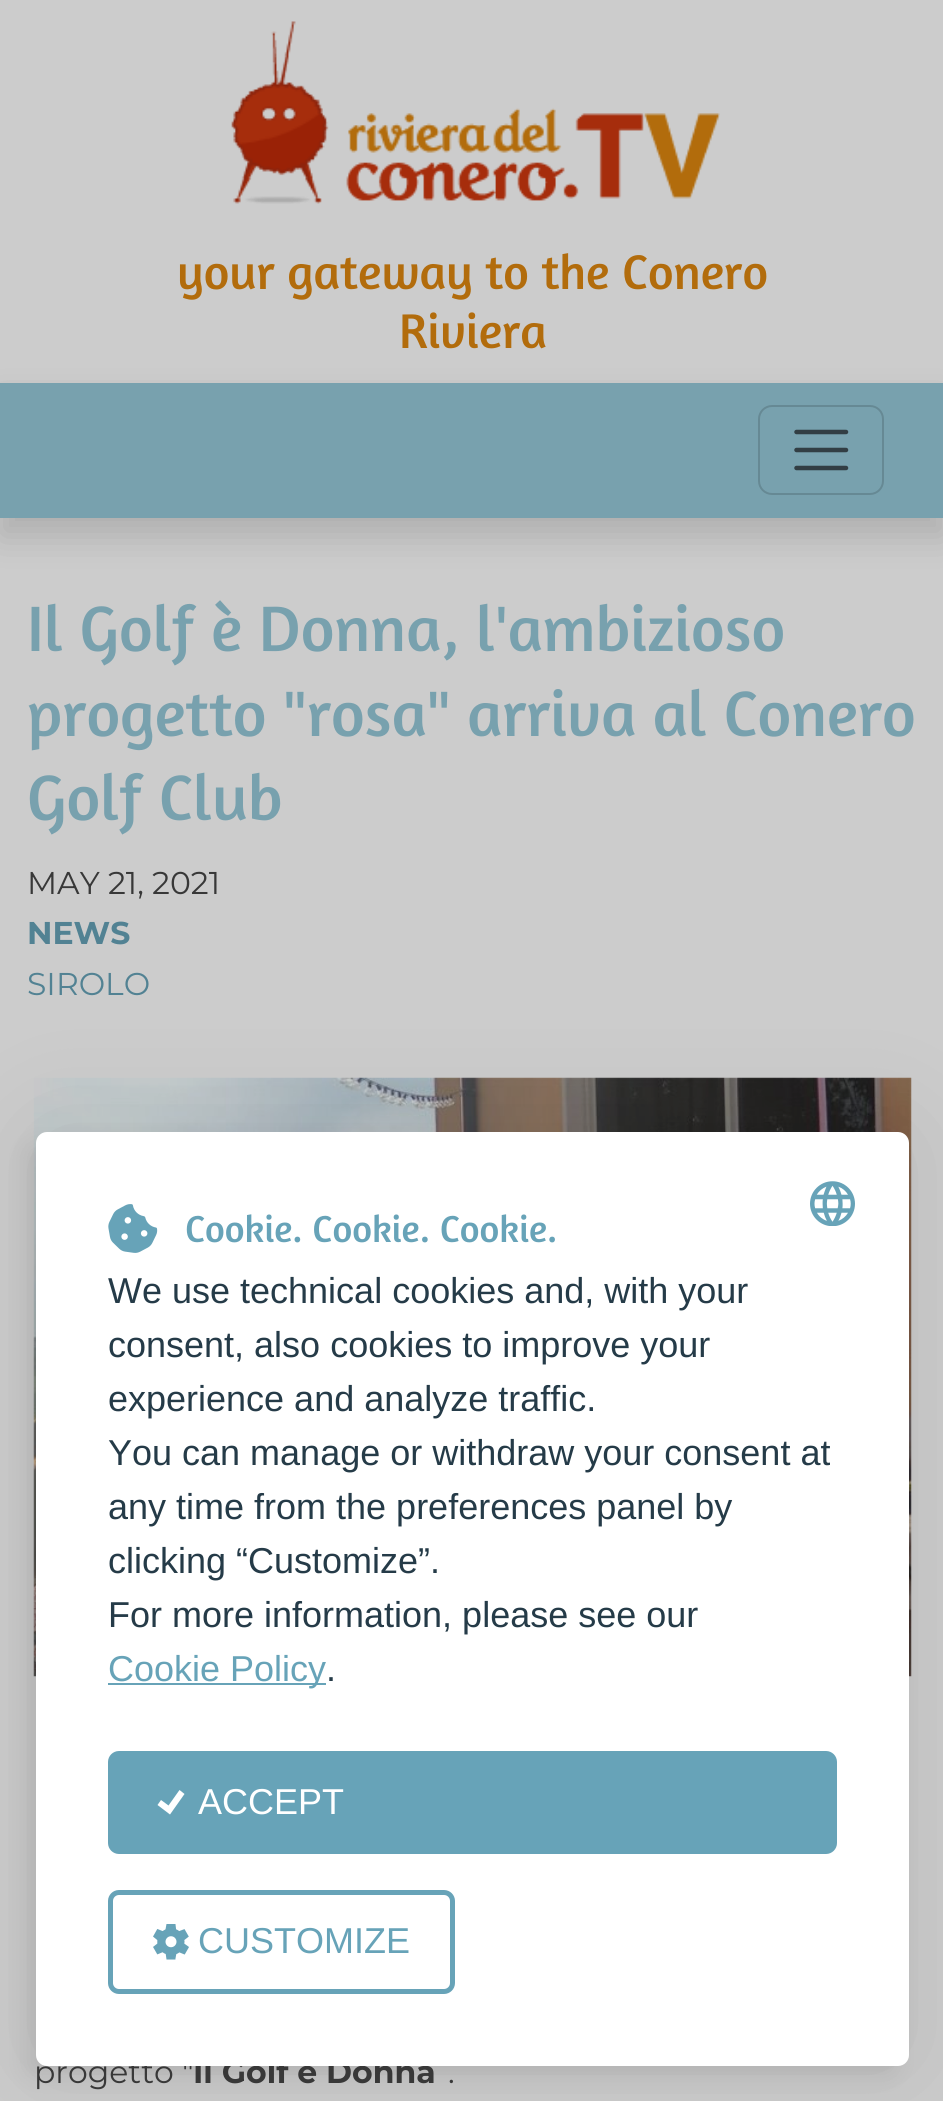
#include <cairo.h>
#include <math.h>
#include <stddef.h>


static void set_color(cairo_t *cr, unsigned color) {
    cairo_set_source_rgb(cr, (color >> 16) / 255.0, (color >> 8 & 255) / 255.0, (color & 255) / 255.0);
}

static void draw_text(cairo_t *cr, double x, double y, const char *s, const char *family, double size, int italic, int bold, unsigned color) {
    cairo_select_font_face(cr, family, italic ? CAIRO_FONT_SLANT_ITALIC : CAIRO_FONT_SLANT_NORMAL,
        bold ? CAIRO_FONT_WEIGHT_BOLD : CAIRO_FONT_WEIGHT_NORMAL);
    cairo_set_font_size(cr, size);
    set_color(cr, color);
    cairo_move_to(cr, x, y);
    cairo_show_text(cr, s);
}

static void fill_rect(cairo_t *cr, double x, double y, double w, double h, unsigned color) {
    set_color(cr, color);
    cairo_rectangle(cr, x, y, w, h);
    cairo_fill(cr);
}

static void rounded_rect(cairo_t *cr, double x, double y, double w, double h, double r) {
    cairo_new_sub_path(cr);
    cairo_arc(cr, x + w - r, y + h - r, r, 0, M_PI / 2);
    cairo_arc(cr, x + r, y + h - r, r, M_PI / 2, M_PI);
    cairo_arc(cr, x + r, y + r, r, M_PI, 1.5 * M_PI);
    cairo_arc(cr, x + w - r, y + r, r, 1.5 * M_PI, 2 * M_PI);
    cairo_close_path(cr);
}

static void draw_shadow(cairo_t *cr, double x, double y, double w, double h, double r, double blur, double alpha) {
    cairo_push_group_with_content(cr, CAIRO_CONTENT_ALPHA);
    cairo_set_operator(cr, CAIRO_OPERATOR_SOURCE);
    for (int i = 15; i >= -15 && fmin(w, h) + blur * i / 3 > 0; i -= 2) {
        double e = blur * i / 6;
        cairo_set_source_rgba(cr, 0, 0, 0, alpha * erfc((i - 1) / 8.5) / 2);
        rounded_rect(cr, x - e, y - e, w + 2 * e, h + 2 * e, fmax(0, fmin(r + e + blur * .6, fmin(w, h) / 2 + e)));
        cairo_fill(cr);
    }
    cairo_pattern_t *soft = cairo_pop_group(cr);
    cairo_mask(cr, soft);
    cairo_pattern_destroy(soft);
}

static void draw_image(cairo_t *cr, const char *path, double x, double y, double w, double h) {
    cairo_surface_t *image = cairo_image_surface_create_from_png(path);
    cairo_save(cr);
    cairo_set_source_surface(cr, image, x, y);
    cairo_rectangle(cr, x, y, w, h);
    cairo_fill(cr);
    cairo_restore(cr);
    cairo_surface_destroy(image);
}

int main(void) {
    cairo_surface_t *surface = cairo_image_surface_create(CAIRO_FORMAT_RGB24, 943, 2101);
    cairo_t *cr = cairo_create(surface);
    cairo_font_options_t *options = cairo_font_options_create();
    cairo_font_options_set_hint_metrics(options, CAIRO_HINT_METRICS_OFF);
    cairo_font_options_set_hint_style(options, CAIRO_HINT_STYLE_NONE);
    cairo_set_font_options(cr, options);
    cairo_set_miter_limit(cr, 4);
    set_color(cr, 0xCCCCCC);
    cairo_paint(cr);
    draw_image(cr, "assets/img1.png", 231, 21, 489, 183);
    draw_text(cr, 177, 289, "your gateway to the Conero", "Amaranth", 49.5, 0, 0, 0xB26C0C);
    draw_text(cr, 399, 348, "Riviera", "Amaranth", 49.5, 0, 0, 0xB26C0C);
    set_color(cr, 0x000000);
    draw_shadow(cr, 0, 401, 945, 135, 0, 18, 0.15);
    fill_rect(cr, 0, 383, 943, 135, 0x78A1AE);
    rounded_rect(cr, 759, 406, 124, 88, 13);
    set_color(cr, 0x668994);
    cairo_stroke(cr);
    cairo_new_path(cr);
    cairo_move_to(cr, 796.5, 432);
    cairo_line_to(cr, 846, 432);
    cairo_move_to(cr, 796.5, 450);
    cairo_line_to(cr, 846, 450);
    cairo_move_to(cr, 796.5, 468);
    cairo_line_to(cr, 846, 468);
    set_color(cr, 0x323E44);
    cairo_set_line_width(cr, 4.5);
    cairo_set_line_cap(cr, CAIRO_LINE_CAP_ROUND);
    cairo_stroke(cr);
    draw_text(cr, 27, 651, "Il Golf è Donna, l'ambizioso", "Amaranth", 65.25, 0, 0, 0x78A1AE);
    draw_text(cr, 27, 736, "progetto \"rosa\" arriva al Conero", "Amaranth", 65.25, 0, 0, 0x78A1AE);
    draw_text(cr, 27, 820, "Golf Club", "Amaranth", 65.25, 0, 0, 0x78A1AE);
    draw_text(cr, 27, 894, "MAY 21, 2021", "Montserrat Thin", 31.5, 0, 0, 0x383838);
    draw_text(cr, 27, 944, "NEWS", "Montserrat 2 Thin", 31.5, 0, 0, 0x528293);
    draw_text(cr, 27, 995, "SIROLO", "Montserrat Thin", 31.5, 0, 0, 0x528293);
    draw_image(cr, "assets/img5.png", 33, 1077, 879, 600);
    set_color(cr, 0x000000);
    draw_shadow(cr, 36, 1132, 873, 934, 11, 56, 0.1);
    draw_shadow(cr, 25, 1143, 873, 934, 11, 11, 0.07);
    draw_text(cr, 34, 2083, "progetto \"", "Montserrat Thin", 31.5, 0, 0, 0x383838);
    draw_text(cr, 193, 2083, "Il Golf è Donna", "Montserrat 2 Thin", 31.5, 0, 0, 0x383838);
    set_color(cr, 0xFFFFFF);
    rounded_rect(cr, 36, 1132, 873, 934, 11);
    cairo_fill(cr);
    draw_image(cr, "assets/img2.png", 108, 1204, 50, 49);
    draw_text(cr, 185, 1242, "Cookie. Cookie. Cookie.", "Amaranth", 38.25, 0, 0, 0x67A3B8);
    draw_image(cr, "assets/img3.png", 810, 1181, 45, 45);
    draw_text(cr, 108, 1303, "We use technical cookies and, with your", "Liberation Sans", 36, 0, 0, 0x253B48);
    draw_text(cr, 108, 1357, "consent, also cookies to improve your", "Liberation Sans", 36, 0, 0, 0x253B48);
    draw_text(cr, 108, 1411, "experience and analyze traffic.", "Liberation Sans", 36, 0, 0, 0x253B48);
    draw_text(cr, 108, 1465, "You can manage or withdraw your consent at", "Liberation Sans", 36, 0, 0, 0x253B48);
    draw_text(cr, 108, 1519, "any time from the preferences panel by", "Liberation Sans", 36, 0, 0, 0x253B48);
    draw_text(cr, 108, 1573, "clicking “Customize”.", "Liberation Sans", 36, 0, 0, 0x253B48);
    draw_text(cr, 108, 1627, "For more information, please see our", "Liberation Sans", 36, 0, 0, 0x253B48);
    fill_rect(cr, 108, 1683, 218, 2, 0x67A3B8);
    draw_text(cr, 108, 1681, "Cookie Policy", "Liberation Sans", 36, 0, 0, 0x67A3B8);
    draw_text(cr, 326, 1681, ".", "Liberation Sans", 36, 0, 0, 0x253B48);
    set_color(cr, 0x67A3B8);
    rounded_rect(cr, 110.5, 1753.5, 724, 98, 8.5);
    cairo_fill_preserve(cr);
    cairo_set_line_width(cr, 5);
    cairo_set_line_cap(cr, CAIRO_LINE_CAP_BUTT);
    cairo_stroke(cr);
    set_color(cr, 0xFFFFFF);
    cairo_new_path(cr);
    cairo_move_to(cr, 179.5, 1790);
    cairo_line_to(cr, 168.5, 1805.5);
    cairo_line_to(cr, 161, 1800);
    cairo_line_to(cr, 157.5, 1805);
    cairo_line_to(cr, 170, 1814.5);
    cairo_line_to(cr, 184.5, 1794);
    cairo_close_path(cr);
    cairo_fill(cr);
    draw_text(cr, 198, 1814, "ACCEPT", "Liberation Sans", 36, 0, 0, 0xFFFFFF);
    rounded_rect(cr, 110.5, 1892.5, 342, 99, 8.5);
    set_color(cr, 0x67A3B8);
    cairo_stroke(cr);
    draw_image(cr, "assets/img4.png", 153, 1924, 36, 36);
    draw_text(cr, 198, 1953, "CUSTOMIZE", "Liberation Sans", 36, 0, 0, 0x67A3B8);
    draw_text(cr, 448, 2083, ".", "Montserrat Thin", 31.5, 0, 0, 0x383838);
    cairo_surface_write_to_png(surface, "output.png");
    cairo_font_options_destroy(options);
    cairo_destroy(cr);
    cairo_surface_destroy(surface);
    return 0;
}
